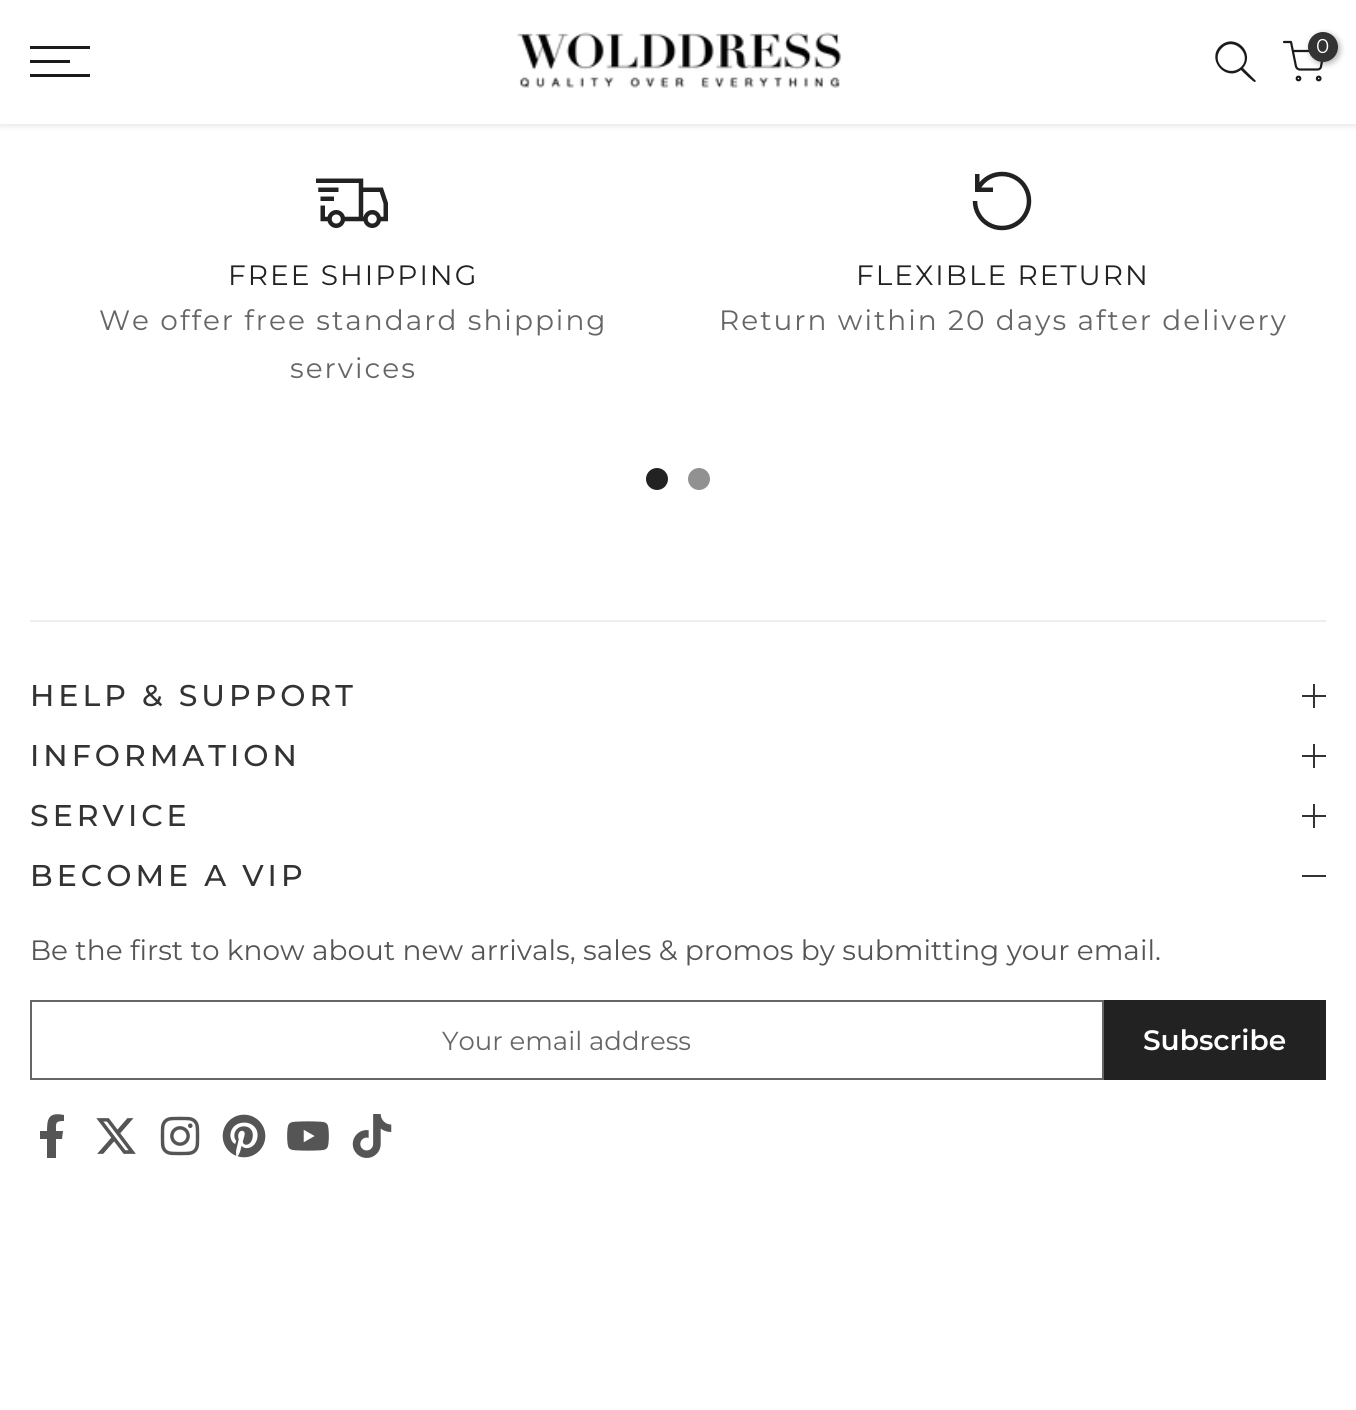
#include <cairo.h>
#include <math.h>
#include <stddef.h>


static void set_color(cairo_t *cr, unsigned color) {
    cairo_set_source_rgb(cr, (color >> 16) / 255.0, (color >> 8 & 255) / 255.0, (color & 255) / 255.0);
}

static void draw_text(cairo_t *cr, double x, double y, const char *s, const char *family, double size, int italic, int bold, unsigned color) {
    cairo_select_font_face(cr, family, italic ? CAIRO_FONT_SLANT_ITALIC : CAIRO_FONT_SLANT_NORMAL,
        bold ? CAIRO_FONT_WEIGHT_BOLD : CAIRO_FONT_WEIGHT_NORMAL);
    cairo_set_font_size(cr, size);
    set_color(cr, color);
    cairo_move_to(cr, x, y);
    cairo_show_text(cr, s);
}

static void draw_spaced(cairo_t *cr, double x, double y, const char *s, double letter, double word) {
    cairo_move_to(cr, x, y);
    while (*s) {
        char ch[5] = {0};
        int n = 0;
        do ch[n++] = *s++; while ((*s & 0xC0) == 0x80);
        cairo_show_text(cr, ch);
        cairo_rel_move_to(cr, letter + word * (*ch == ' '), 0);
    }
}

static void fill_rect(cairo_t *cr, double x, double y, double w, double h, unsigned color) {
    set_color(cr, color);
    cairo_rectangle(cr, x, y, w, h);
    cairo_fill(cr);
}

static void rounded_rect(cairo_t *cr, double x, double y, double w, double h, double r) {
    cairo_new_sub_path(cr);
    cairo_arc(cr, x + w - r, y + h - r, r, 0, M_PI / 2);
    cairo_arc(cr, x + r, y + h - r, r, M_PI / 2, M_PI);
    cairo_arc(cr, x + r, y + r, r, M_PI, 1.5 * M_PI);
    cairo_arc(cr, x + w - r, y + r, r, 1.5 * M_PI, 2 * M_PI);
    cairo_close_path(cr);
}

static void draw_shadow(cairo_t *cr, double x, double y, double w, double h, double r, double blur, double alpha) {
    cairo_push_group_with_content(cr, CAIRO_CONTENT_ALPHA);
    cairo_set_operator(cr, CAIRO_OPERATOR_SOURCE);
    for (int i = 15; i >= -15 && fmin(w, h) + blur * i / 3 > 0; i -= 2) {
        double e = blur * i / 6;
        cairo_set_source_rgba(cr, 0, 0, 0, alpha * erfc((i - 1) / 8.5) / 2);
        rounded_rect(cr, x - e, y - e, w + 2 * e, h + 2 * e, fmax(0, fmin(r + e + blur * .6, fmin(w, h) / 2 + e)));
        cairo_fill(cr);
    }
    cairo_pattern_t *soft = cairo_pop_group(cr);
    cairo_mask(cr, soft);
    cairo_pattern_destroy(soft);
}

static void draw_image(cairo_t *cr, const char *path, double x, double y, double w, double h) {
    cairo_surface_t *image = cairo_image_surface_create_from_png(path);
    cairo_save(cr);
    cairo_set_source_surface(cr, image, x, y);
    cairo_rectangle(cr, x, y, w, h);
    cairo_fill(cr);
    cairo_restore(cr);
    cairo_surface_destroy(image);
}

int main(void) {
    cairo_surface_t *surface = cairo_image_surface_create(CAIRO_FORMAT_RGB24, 1356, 1410);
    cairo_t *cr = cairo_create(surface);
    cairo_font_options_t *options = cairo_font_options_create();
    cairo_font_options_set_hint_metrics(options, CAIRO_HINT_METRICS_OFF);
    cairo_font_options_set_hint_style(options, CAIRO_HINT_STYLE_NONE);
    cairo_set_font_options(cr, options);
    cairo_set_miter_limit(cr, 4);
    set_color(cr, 0xFFFFFF);
    cairo_paint(cr);
    set_color(cr, 0x000000);
    draw_shadow(cr, 0, 2, 1356, 124, 0, 3, 0.1);
    fill_rect(cr, 0, 0, 1356, 124, 0xFFFFFF);
    fill_rect(cr, 30, 46, 60, 3, 0x1C1B1B);
    fill_rect(cr, 30, 60, 40, 3, 0x1C1B1B);
    fill_rect(cr, 30, 74, 60, 3, 0x1C1B1B);
    draw_image(cr, "assets/img1.png", 517, 32, 325, 56);
    cairo_set_fill_rule(cr, CAIRO_FILL_RULE_EVEN_ODD);
    cairo_new_path(cr);
    cairo_move_to(cr, 1241, 67);
    cairo_curve_to(cr, 1228, 79, 1209, 61, 1222, 48);
    cairo_curve_to(cr, 1234, 36, 1253, 55, 1241, 67);
    cairo_close_path(cr);
    cairo_move_to(cr, 1241, 70);
    cairo_curve_to(cr, 1226, 82, 1206, 60, 1220, 46);
    cairo_curve_to(cr, 1235, 32, 1256, 53, 1243, 68);
    cairo_line_to(cr, 1256, 81);
    cairo_line_to(cr, 1255, 82);
    cairo_curve_to(cr, 1254, 83, 1243, 72, 1241, 70);
    cairo_close_path(cr);
    cairo_fill(cr);
    cairo_new_path(cr);
    cairo_move_to(cr, 1284, 42);
    cairo_line_to(cr, 1291, 42);
    cairo_line_to(cr, 1296, 66.5);
    cairo_curve_to(cr, 1296.5, 68, 1298, 69.5, 1299.5, 69.5);
    cairo_line_to(cr, 1317.5, 69.5);
    cairo_curve_to(cr, 1319.5, 69.5, 1321, 68, 1321, 66.5);
    cairo_line_to(cr, 1324, 51);
    cairo_line_to(cr, 1293, 51);
    cairo_set_line_width(cr, 2.2);
    cairo_set_line_cap(cr, CAIRO_LINE_CAP_ROUND);
    cairo_set_line_join(cr, CAIRO_LINE_JOIN_ROUND);
    cairo_stroke(cr);
    set_color(cr, 0x000000);
    draw_shadow(cr, 1310, 34, 30, 30, 15, 3, 0.3);
    set_color(cr, 0x333333);
    cairo_arc(cr, 1323, 47, 15, 0, 2 * M_PI);
    cairo_fill(cr);
    draw_text(cr, 1316, 53, "0", "Montserrat Thin", 20, 0, 0, 0xFFFFFF);
    cairo_new_path(cr);
    cairo_arc(cr, 1298.5, 78.5, 1.8, 0, 2 * M_PI);
    set_color(cr, 0x1C1B1B);
    cairo_set_line_cap(cr, CAIRO_LINE_CAP_BUTT);
    cairo_set_line_join(cr, CAIRO_LINE_JOIN_MITER);
    cairo_stroke(cr);
    cairo_arc(cr, 1318.7, 78.5, 1.8, 0, 2 * M_PI);
    cairo_stroke(cr);
    draw_image(cr, "assets/img2.png", 316, 178, 72, 50);
    cairo_set_font_size(cr, 28);
    set_color(cr, 0x222222);
    draw_spaced(cr, 228, 285, "FREE SHIPPING", 2, 0);
    set_color(cr, 0x666666);
    draw_spaced(cr, 99, 330, "We offer free standard shipping", 2, 0);
    draw_spaced(cr, 290, 378, "services", 2, 0);
    draw_image(cr, "assets/img3.png", 972, 171, 60, 60);
    set_color(cr, 0x222222);
    draw_spaced(cr, 856, 285, "FLEXIBLE RETURN", 2, 0);
    set_color(cr, 0x666666);
    draw_spaced(cr, 719, 330, "Return within 20 days after delivery", 2, 0);
    set_color(cr, 0x222222);
    cairo_new_path(cr);
    cairo_arc(cr, 657, 479, 11, 0, 2 * M_PI);
    cairo_fill(cr);
    set_color(cr, 0x919191);
    cairo_arc(cr, 699, 479, 11, 0, 2 * M_PI);
    cairo_fill(cr);
    fill_rect(cr, 30, 620, 1296, 2, 0xEEEEEE);
    cairo_select_font_face(cr, "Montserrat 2 Thin", CAIRO_FONT_SLANT_NORMAL, CAIRO_FONT_WEIGHT_NORMAL);
    cairo_set_font_size(cr, 30);
    set_color(cr, 0x333333);
    draw_spaced(cr, 30, 706, "HELP & SUPPORT", 4, 0);
    fill_rect(cr, 1313, 684, 2, 24, 0x333333);
    fill_rect(cr, 1302, 695, 24, 2, 0x333333);
    draw_spaced(cr, 30, 766, "INFORMATION", 4, 0);
    fill_rect(cr, 1313, 744, 2, 24, 0x333333);
    fill_rect(cr, 1302, 755, 24, 2, 0x333333);
    draw_spaced(cr, 30, 826, "SERVICE", 4, 0);
    fill_rect(cr, 1313, 804, 2, 24, 0x333333);
    fill_rect(cr, 1302, 815, 24, 2, 0x333333);
    draw_spaced(cr, 30, 886, "BECOME A VIP", 4, 0);
    fill_rect(cr, 1302, 875, 24, 2, 0x333333);
    draw_text(cr, 30, 960, "Be the first to know about new arrivals, sales & promos by submitting your email.", "Montserrat Thin", 28, 0, 0, 0x555555);
    cairo_rectangle(cr, 31, 1001, 1072, 78);
    set_color(cr, 0x666666);
    cairo_set_line_width(cr, 2);
    cairo_stroke(cr);
    draw_text(cr, 442, 1050, "Your email address", "Montserrat Thin", 26, 0, 0, 0x666666);
    fill_rect(cr, 1104, 1000, 222, 80, 0x222222);
    draw_text(cr, 1143, 1050, "Subscribe", "Montserrat SemiBold", 28, 0, 0, 0xFFFFFF);
    set_color(cr, 0x555555);
    cairo_set_fill_rule(cr, CAIRO_FILL_RULE_WINDING);
    cairo_new_path(cr);
    cairo_move_to(cr, 62, 1139);
    cairo_line_to(cr, 63, 1131);
    cairo_line_to(cr, 56, 1131);
    cairo_curve_to(cr, 56, 1123, 55, 1121, 64, 1121);
    cairo_line_to(cr, 64, 1115);
    cairo_curve_to(cr, 49, 1112, 47, 1118, 47, 1131);
    cairo_line_to(cr, 40, 1131);
    cairo_line_to(cr, 40, 1139);
    cairo_line_to(cr, 47, 1139);
    cairo_line_to(cr, 47, 1158);
    cairo_line_to(cr, 56, 1158);
    cairo_line_to(cr, 56, 1139);
    cairo_close_path(cr);
    cairo_fill(cr);
    draw_image(cr, "assets/img4.png", 96, 1118, 40, 36);
    draw_image(cr, "assets/img5.png", 160, 1116, 40, 40);
    draw_image(cr, "assets/img6.png", 222, 1114, 44, 44);
    draw_image(cr, "assets/img7.png", 287, 1121, 42, 30);
    draw_image(cr, "assets/img8.png", 352, 1114, 40, 44);
    cairo_surface_write_to_png(surface, "output.png");
    cairo_font_options_destroy(options);
    cairo_destroy(cr);
    cairo_surface_destroy(surface);
    return 0;
}
